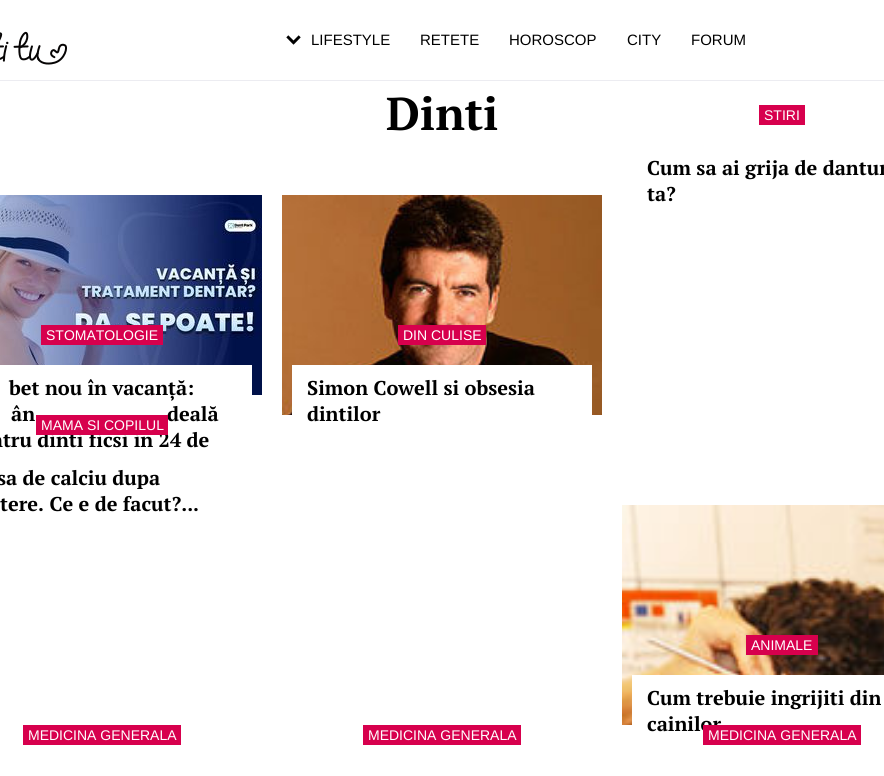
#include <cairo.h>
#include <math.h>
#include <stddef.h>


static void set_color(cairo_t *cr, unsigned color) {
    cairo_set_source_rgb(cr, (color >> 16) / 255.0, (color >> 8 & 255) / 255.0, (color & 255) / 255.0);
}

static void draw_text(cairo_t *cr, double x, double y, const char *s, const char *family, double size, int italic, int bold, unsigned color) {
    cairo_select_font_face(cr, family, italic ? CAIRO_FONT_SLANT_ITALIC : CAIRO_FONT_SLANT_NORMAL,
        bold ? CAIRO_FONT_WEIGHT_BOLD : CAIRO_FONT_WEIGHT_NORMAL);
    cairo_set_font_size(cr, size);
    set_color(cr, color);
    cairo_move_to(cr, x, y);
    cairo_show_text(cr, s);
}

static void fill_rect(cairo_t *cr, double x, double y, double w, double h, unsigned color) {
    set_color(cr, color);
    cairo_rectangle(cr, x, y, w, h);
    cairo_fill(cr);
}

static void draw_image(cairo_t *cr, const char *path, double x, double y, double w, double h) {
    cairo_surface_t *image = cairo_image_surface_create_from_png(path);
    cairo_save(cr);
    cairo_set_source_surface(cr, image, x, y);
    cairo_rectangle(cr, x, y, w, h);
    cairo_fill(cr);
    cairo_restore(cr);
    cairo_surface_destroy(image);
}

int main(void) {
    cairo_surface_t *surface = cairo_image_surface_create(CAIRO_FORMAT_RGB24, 884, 776);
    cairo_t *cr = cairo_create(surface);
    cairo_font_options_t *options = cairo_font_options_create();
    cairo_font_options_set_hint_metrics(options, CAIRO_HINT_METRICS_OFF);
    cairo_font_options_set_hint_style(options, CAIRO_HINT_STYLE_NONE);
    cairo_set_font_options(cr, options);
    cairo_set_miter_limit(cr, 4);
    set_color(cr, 0xFFFFFF);
    cairo_paint(cr);
    fill_rect(cr, 0, 80, 884, 1, 0xECECF1);
    draw_image(cr, "assets/img1.png", 0, 31, 67, 34);
    draw_image(cr, "assets/img2.png", 286, 35, 15, 10);
    draw_text(cr, 311, 45, "LIFESTYLE", "Liberation Sans", 15, 0, 0, 0x000000);
    draw_text(cr, 420, 45, "RETETE", "Liberation Sans", 15, 0, 0, 0x000000);
    draw_text(cr, 509, 45, "HOROSCOP", "Liberation Sans", 15, 0, 0, 0x000000);
    draw_text(cr, 627, 45, "CITY", "Liberation Sans", 15, 0, 0, 0x000000);
    draw_text(cr, 691, 45, "FORUM", "Liberation Sans", 15, 0, 0, 0x000000);
    draw_text(cr, 386, 130, "Dinti", "PT Serif", 46, 0, 1, 0x000000);
    fill_rect(cr, 759, 105, 46, 20, 0xD7004D);
    draw_text(cr, 764, 120, "STIRI", "Liberation Sans", 14, 0, 0, 0xFFFFFF);
    draw_text(cr, 647, 175, "Cum sa ai grija de dantur", "PT Serif", 20, 0, 1, 0x000000);
    draw_text(cr, 647, 201, "ta?", "PT Serif", 20, 0, 1, 0x000000);
    draw_image(cr, "assets/img3.png", 0, 195, 262, 200);
    fill_rect(cr, 41, 325, 122, 20, 0xD7004D);
    draw_text(cr, 46, 340, "STOMATOLOGIE", "Liberation Sans", 14, 0, 0, 0xFFFFFF);
    fill_rect(cr, 0, 365, 252, 30, 0xFFFFFF);
    draw_text(cr, 9, 395, "bet nou în vacanță:", "PT Serif", 20, 0, 1, 0x000000);
    draw_text(cr, 11, 421, "ân", "PT Serif", 20, 0, 1, 0x000000);
    draw_text(cr, 167, 421, "deală", "PT Serif", 20, 0, 1, 0x000000);
    draw_text(cr, -10, 447, "ntru dinti ficsi in 24 de", "PT Serif", 20, 0, 1, 0x000000);
    draw_image(cr, "assets/img4.png", 282, 195, 320, 220);
    fill_rect(cr, 398, 325, 88, 20, 0xD7004D);
    draw_text(cr, 403, 340, "DIN CULISE", "Liberation Sans", 14, 0, 0, 0xFFFFFF);
    fill_rect(cr, 292, 365, 300, 50, 0xFFFFFF);
    draw_text(cr, 307, 395, "Simon Cowell si obsesia", "PT Serif", 20, 0, 1, 0x000000);
    draw_text(cr, 307, 421, "dintilor", "PT Serif", 20, 0, 1, 0x000000);
    fill_rect(cr, 36, 415, 132, 20, 0xD7004D);
    draw_text(cr, 41, 430, "MAMA SI COPILUL", "Liberation Sans", 14, 0, 0, 0xFFFFFF);
    draw_text(cr, -3, 485, "sa de calciu dupa", "PT Serif", 20, 0, 1, 0x000000);
    draw_text(cr, 0, 511, "tere. Ce e de facut?...", "PT Serif", 20, 0, 1, 0x000000);
    draw_image(cr, "assets/img5.png", 622, 505, 262, 220);
    fill_rect(cr, 746, 635, 72, 20, 0xD7004D);
    draw_text(cr, 751, 650, "ANIMALE", "Liberation Sans", 14, 0, 0, 0xFFFFFF);
    fill_rect(cr, 632, 675, 252, 50, 0xFFFFFF);
    draw_text(cr, 647, 705, "Cum trebuie ingrijiti din", "PT Serif", 20, 0, 1, 0x000000);
    draw_text(cr, 647, 731, "cainilor", "PT Serif", 20, 0, 1, 0x000000);
    fill_rect(cr, 23, 725, 158, 20, 0xD7004D);
    draw_text(cr, 28, 740, "MEDICINA GENERALA", "Liberation Sans", 14, 0, 0, 0xFFFFFF);
    fill_rect(cr, 363, 725, 158, 20, 0xD7004D);
    draw_text(cr, 368, 740, "MEDICINA GENERALA", "Liberation Sans", 14, 0, 0, 0xFFFFFF);
    fill_rect(cr, 703, 725, 158, 20, 0xD7004D);
    draw_text(cr, 708, 740, "MEDICINA GENERALA", "Liberation Sans", 14, 0, 0, 0xFFFFFF);
    cairo_surface_write_to_png(surface, "output.png");
    cairo_font_options_destroy(options);
    cairo_destroy(cr);
    cairo_surface_destroy(surface);
    return 0;
}
